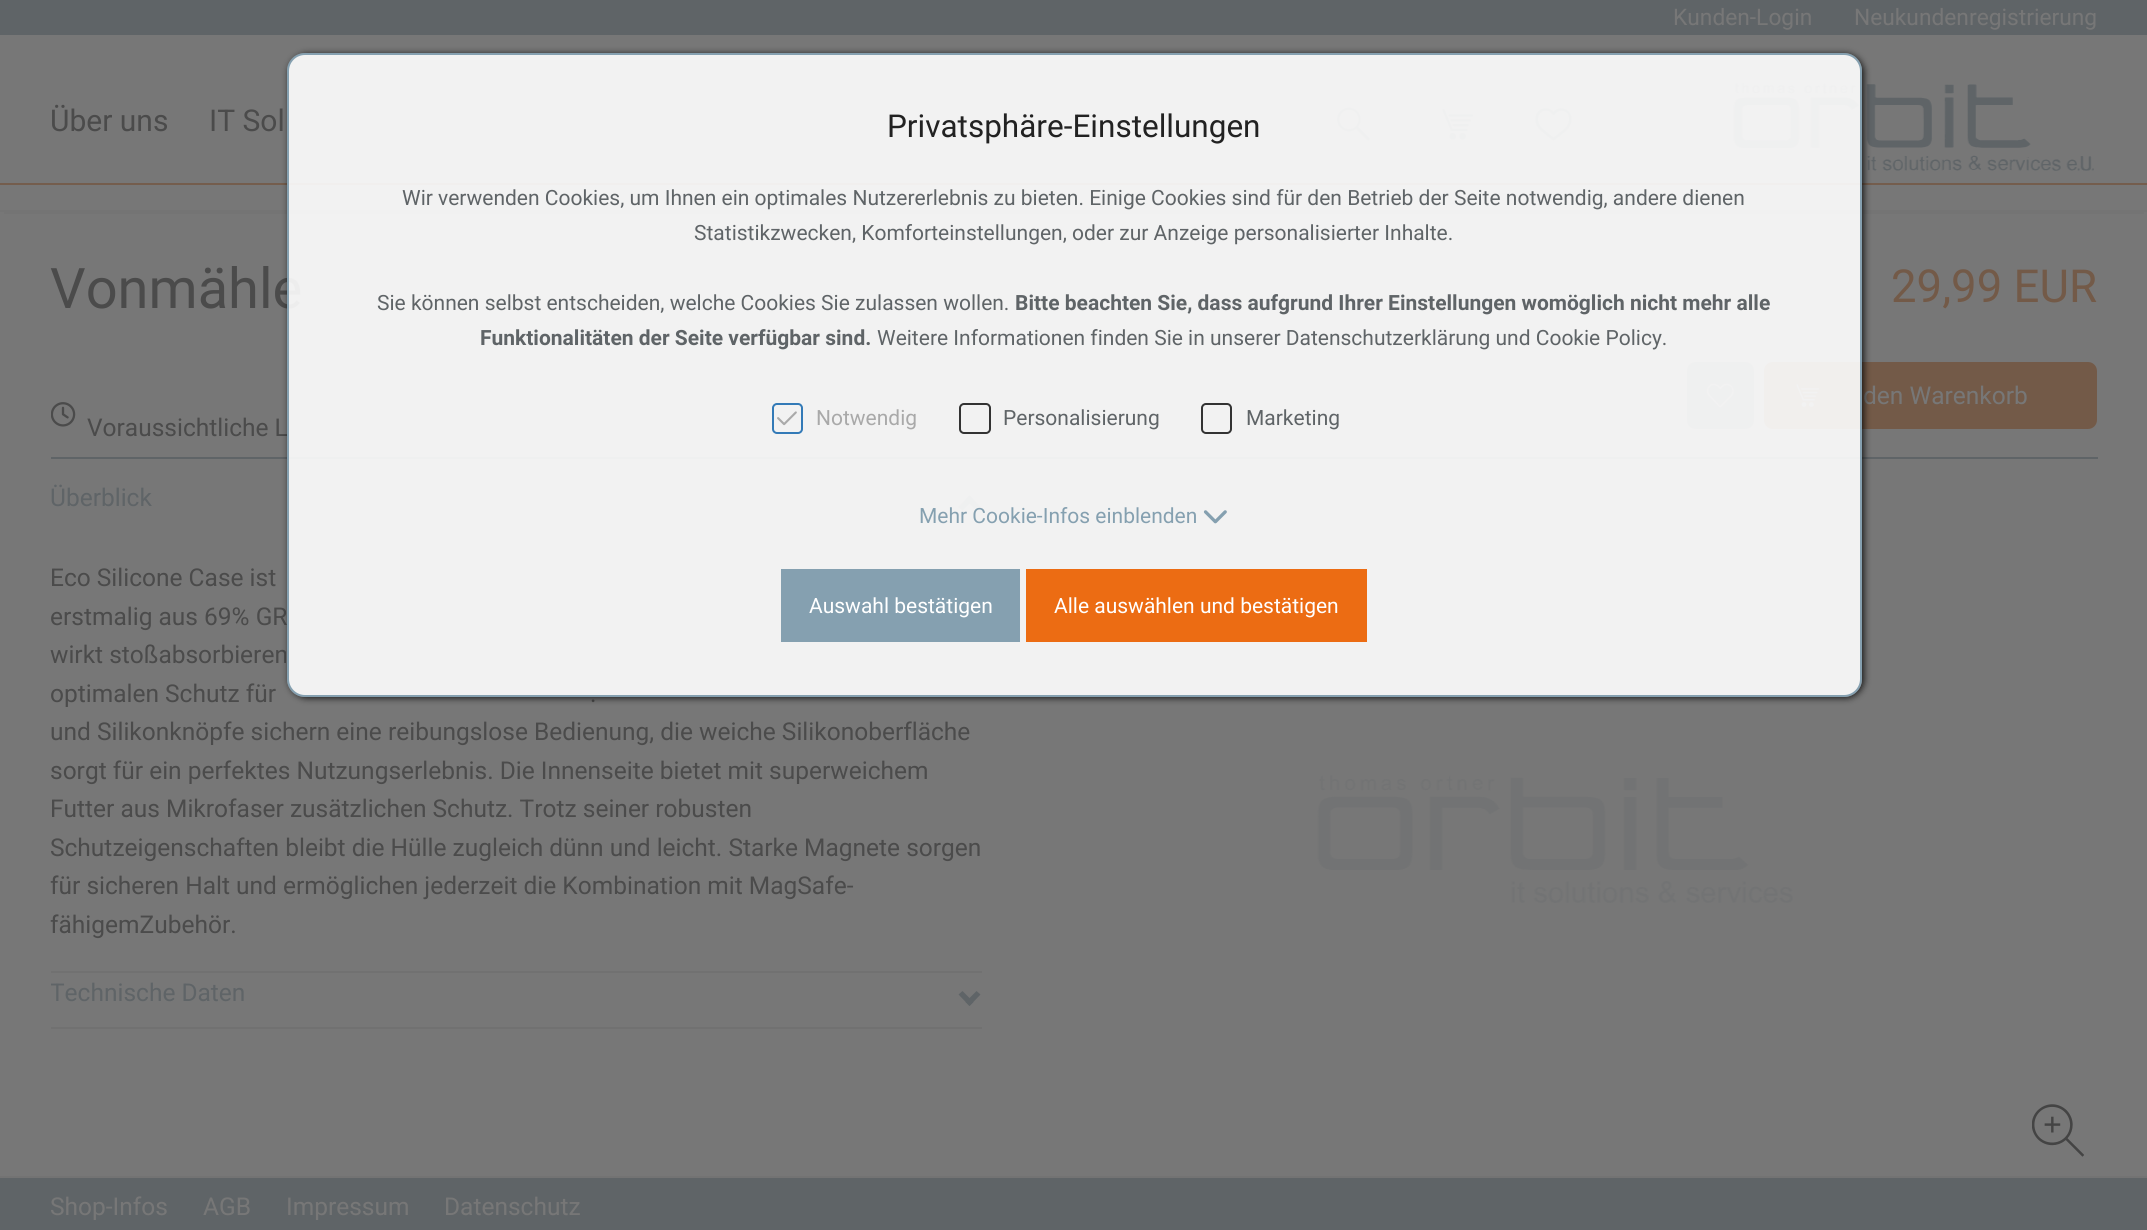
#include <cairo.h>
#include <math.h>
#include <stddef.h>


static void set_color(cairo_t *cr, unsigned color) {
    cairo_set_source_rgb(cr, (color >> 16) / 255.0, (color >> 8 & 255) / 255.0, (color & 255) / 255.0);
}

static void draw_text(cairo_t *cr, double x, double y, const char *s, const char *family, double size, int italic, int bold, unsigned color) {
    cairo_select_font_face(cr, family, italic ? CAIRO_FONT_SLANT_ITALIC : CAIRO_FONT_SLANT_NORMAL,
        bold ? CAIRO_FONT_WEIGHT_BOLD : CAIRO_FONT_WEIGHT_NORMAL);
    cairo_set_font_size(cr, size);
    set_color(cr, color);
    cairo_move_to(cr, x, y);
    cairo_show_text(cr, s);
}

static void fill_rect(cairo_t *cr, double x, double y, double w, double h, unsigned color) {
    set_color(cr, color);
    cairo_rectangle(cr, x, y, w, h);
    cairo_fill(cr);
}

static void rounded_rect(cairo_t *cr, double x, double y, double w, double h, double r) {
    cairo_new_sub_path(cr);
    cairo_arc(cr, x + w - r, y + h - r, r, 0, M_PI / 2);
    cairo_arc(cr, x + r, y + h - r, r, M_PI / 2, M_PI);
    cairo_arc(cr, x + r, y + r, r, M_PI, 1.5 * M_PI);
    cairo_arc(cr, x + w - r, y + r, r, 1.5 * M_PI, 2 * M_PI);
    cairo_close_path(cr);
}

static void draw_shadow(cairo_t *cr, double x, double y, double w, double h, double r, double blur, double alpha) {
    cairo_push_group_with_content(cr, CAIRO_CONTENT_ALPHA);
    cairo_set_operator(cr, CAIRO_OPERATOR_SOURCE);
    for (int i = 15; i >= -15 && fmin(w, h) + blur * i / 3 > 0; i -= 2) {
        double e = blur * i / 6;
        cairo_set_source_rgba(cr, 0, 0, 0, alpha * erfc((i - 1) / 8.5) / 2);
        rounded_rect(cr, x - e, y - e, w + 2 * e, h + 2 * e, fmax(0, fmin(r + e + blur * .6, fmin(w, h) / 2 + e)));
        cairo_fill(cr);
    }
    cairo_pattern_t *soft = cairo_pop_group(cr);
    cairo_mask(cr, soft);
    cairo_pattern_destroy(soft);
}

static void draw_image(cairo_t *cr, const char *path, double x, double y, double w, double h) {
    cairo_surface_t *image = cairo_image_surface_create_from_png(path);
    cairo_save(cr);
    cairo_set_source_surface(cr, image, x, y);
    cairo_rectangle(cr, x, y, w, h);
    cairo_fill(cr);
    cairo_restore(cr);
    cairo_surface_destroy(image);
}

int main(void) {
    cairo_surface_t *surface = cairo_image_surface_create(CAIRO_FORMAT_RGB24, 2147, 1230);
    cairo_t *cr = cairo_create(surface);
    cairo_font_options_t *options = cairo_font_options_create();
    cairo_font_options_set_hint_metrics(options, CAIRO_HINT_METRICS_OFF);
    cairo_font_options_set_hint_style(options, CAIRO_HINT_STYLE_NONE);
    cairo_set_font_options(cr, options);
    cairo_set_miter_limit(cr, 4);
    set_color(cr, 0x777777);
    cairo_paint(cr);
    fill_rect(cr, 4, 212, 2140, 2, 0x747474);
    fill_rect(cr, 0, 0, 2147, 35, 0x5F6467);
    draw_text(cr, 1673, 25, "Kunden-Login", "Roboto", 22.75, 0, 0, 0x777777);
    draw_text(cr, 1854, 25, "Neukundenregistrierung", "Roboto", 22.75, 0, 0, 0x777777);
    fill_rect(cr, 0, 183, 2147, 2, 0x745D4D);
    fill_rect(cr, 0, 210, 2147, 2, 0x747474);
    draw_text(cr, 50, 131, "Über uns", "Roboto", 30, 0, 0, 0x4B4B4B);
    draw_text(cr, 209, 131, "IT Sol", "Roboto", 30, 0, 0, 0x4B4B4B);
    draw_image(cr, "assets/img1.png", 1337, 107, 33, 34);
    draw_image(cr, "assets/img2.png", 1442, 109, 31, 31);
    draw_image(cr, "assets/img3.png", 1535, 108, 37, 33);
    draw_image(cr, "assets/img4.png", 1733, 83, 361, 88);
    draw_text(cr, 50, 308, "Vonmähle", "Roboto", 56, 0, 0, 0x4B4B4B);
    draw_image(cr, "assets/img5.png", 51, 402, 25, 25);
    draw_text(cr, 87, 436, "Voraussichtliche L", "Roboto", 24.5, 0, 0, 0x4B4B4B);
    draw_text(cr, 1891, 302, "29,99 EUR", "Roboto", 45.5, 0, 0, 0x735A48);
    set_color(cr, 0x5F6467);
    rounded_rect(cr, 1688, 363, 65, 65, 8);
    cairo_fill_preserve(cr);
    cairo_stroke(cr);
    draw_image(cr, "assets/img6.png", 1706, 383, 28, 25);
    set_color(cr, 0x735A48);
    rounded_rect(cr, 1765, 363, 331, 65, 8);
    cairo_fill_preserve(cr);
    cairo_stroke(cr);
    draw_image(cr, "assets/img7.png", 1796, 384, 24, 23);
    draw_text(cr, 1863, 404, "den Warenkorb", "Roboto", 24.5, 0, 0, 0x777777);
    fill_rect(cr, 51, 457, 2047, 2, 0x5F6467);
    fill_rect(cr, 51, 971, 931, 2, 0x717171);
    draw_text(cr, 50, 506, "Überblick", "Roboto", 24.5, 0, 0, 0x5F6467);
    cairo_new_path(cr);
    cairo_move_to(cr, 965.5, 499.5);
    cairo_line_to(cr, 969.5, 495.5);
    cairo_line_to(cr, 980.5, 507);
    cairo_line_to(cr, 976.5, 510.5);
    cairo_close_path(cr);
    cairo_fill(cr);
    cairo_new_path(cr);
    cairo_move_to(cr, 969.5, 495.5);
    cairo_line_to(cr, 973.5, 499.5);
    cairo_line_to(cr, 962.5, 510.5);
    cairo_line_to(cr, 958.5, 507);
    cairo_close_path(cr);
    cairo_fill(cr);
    draw_text(cr, 50, 586, "Eco Silicone Case ist", "Roboto", 24.5, 0, 0, 0x4B4B4B);
    draw_text(cr, 50, 625, "erstmalig aus 69% GR", "Roboto", 24.5, 0, 0, 0x4B4B4B);
    draw_text(cr, 50, 663, "wirkt stoßabsorbieren", "Roboto", 24.5, 0, 0, 0x4B4B4B);
    draw_text(cr, 50, 702, "optimalen Schutz für", "Roboto", 24.5, 0, 0, 0x4B4B4B);
    draw_text(cr, 590, 702, ".", "Roboto", 24.5, 0, 0, 0x4B4B4B);
    draw_text(cr, 50, 740, "und Silikonknöpfe sichern eine reibungslose Bedienung, die weiche Silikonoberfläche", "Roboto", 24.5, 0, 0, 0x4B4B4B);
    draw_text(cr, 50, 779, "sorgt für ein perfektes Nutzungserlebnis. Die Innenseite bietet mit superweichem", "Roboto", 24.5, 0, 0, 0x4B4B4B);
    draw_text(cr, 50, 817, "Futter aus Mikrofaser zusätzlichen Schutz. Trotz seiner robusten", "Roboto", 24.5, 0, 0, 0x4B4B4B);
    draw_text(cr, 50, 856, "Schutzeigenschaften bleibt die Hülle zugleich dünn und leicht. Starke Magnete sorgen", "Roboto", 24.5, 0, 0, 0x4B4B4B);
    draw_text(cr, 50, 894, "für sicheren Halt und ermöglichen jederzeit die Kombination mit MagSafe-", "Roboto", 24.5, 0, 0, 0x4B4B4B);
    draw_text(cr, 50, 933, "fähigemZubehör.", "Roboto", 24.5, 0, 0, 0x4B4B4B);
    fill_rect(cr, 51, 1027, 931, 2, 0x717171);
    cairo_save(cr);
    cairo_rectangle(cr, 51, 478, 931, 551);
    cairo_clip(cr);
    draw_text(cr, 50, 1001, "Technische Daten", "Roboto", 24.5, 0, 0, 0x5F6467);
    cairo_restore(cr);
    set_color(cr, 0x5F6467);
    cairo_new_path(cr);
    cairo_move_to(cr, 958.5, 994.5);
    cairo_line_to(cr, 962.5, 991);
    cairo_line_to(cr, 973.5, 1002);
    cairo_line_to(cr, 969.5, 1006);
    cairo_close_path(cr);
    cairo_fill(cr);
    cairo_new_path(cr);
    cairo_move_to(cr, 976.5, 991);
    cairo_line_to(cr, 980.5, 994.5);
    cairo_line_to(cr, 969.5, 1006);
    cairo_line_to(cr, 965.5, 1002);
    cairo_close_path(cr);
    cairo_fill(cr);
    draw_image(cr, "assets/img8.png", 1317, 775, 476, 128);
    draw_image(cr, "assets/img9.png", 2032, 1104, 52, 53);
    fill_rect(cr, 0, 1176, 2147, 2, 0x737373);
    fill_rect(cr, 0, 1178, 2147, 52, 0x5F6467);
    draw_text(cr, 50, 1215, "Shop-Infos", "Roboto", 24.5, 0, 0, 0x777777);
    draw_text(cr, 203, 1215, "AGB", "Roboto", 24.5, 0, 0, 0x777777);
    draw_text(cr, 286, 1215, "Impressum", "Roboto", 24.5, 0, 0, 0x777777);
    draw_text(cr, 444, 1215, "Datenschutz", "Roboto", 24.5, 0, 0, 0x777777);
    cairo_save(cr);
    cairo_set_fill_rule(cr, CAIRO_FILL_RULE_EVEN_ODD);
    cairo_new_path(cr);
    cairo_move_to(cr, 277, 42);
    cairo_line_to(cr, 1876, 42);
    cairo_line_to(cr, 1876, 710);
    cairo_line_to(cr, 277, 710);
    cairo_close_path(cr);
    cairo_move_to(cr, 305, 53);
    cairo_line_to(cr, 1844, 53);
    cairo_curve_to(cr, 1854, 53, 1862, 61, 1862, 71);
    cairo_line_to(cr, 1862, 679);
    cairo_curve_to(cr, 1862, 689, 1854, 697, 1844, 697);
    cairo_line_to(cr, 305, 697);
    cairo_curve_to(cr, 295, 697, 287, 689, 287, 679);
    cairo_line_to(cr, 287, 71);
    cairo_curve_to(cr, 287, 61, 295, 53, 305, 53);
    cairo_close_path(cr);
    cairo_clip(cr);
    set_color(cr, 0x000000);
    draw_shadow(cr, 289, 54, 1575, 644, 18, 3.5, 0.8);
    cairo_restore(cr);
    cairo_set_source_rgba(cr, 1, 1, 1, 0.9);
    rounded_rect(cr, 288, 54, 1573, 642, 17);
    cairo_fill_preserve(cr);
    set_color(cr, 0x85A0B0);
    cairo_stroke(cr);
    draw_text(cr, 887, 137, "Privatsphäre-Einstellungen", "Roboto", 31.5, 0, 0, 0x222222);
    draw_text(cr, 402, 205, "Wir verwenden Cookies, um Ihnen ein optimales Nutzererlebnis zu bieten. Einige Cookies sind für den Betrieb der Seite notwendig, andere dienen", "Roboto", 21, 0, 0, 0x5F6467);
    draw_text(cr, 694, 240, "Statistikzwecken, Komforteinstellungen, oder zur Anzeige personalisierter Inhalte.", "Roboto", 21, 0, 0, 0x5F6467);
    draw_text(cr, 377, 310, "Sie können selbst entscheiden, welche Cookies Sie zulassen wollen.", "Roboto", 21, 0, 0, 0x5F6467);
    draw_text(cr, 1015, 310, "Bitte beachten Sie, dass aufgrund Ihrer Einstellungen womöglich nicht mehr alle", "Roboto", 21, 0, 1, 0x5F6467);
    draw_text(cr, 480, 345, "Funktionalitäten der Seite verfügbar sind.", "Roboto", 21, 0, 1, 0x5F6467);
    draw_text(cr, 877, 345, "Weitere Informationen finden Sie in unserer Datenschutzerklärung und Cookie Policy.", "Roboto", 21, 0, 0, 0x5F6467);
    rounded_rect(cr, 773, 404, 29, 29, 4);
    set_color(cr, 0x337AB7);
    cairo_stroke(cr);
    draw_image(cr, "assets/img10.png", 777, 411, 20, 15);
    draw_text(cr, 816, 425, "Notwendig", "Roboto", 21, 0, 0, 0xA9A9A9);
    rounded_rect(cr, 960, 404, 30, 29, 4);
    set_color(cr, 0x333333);
    cairo_stroke(cr);
    draw_text(cr, 1003, 425, "Personalisierung", "Roboto", 21, 0, 0, 0x5F6467);
    rounded_rect(cr, 1202, 404, 29, 29, 4);
    set_color(cr, 0x333333);
    cairo_stroke(cr);
    draw_text(cr, 1246, 425, "Marketing", "Roboto", 21, 0, 0, 0x5F6467);
    draw_text(cr, 919, 523, "Mehr Cookie-Infos einblenden", "Roboto", 21, 0, 0, 0x85A0B0);
    draw_image(cr, "assets/img11.png", 1203, 510, 24, 14);
    fill_rect(cr, 781, 569, 239, 73, 0x85A0B0);
    draw_text(cr, 809, 613, "Auswahl bestätigen", "Roboto", 21, 0, 0, 0xFFFFFF);
    fill_rect(cr, 1026, 569, 341, 73, 0xEC6C13);
    draw_text(cr, 1054, 613, "Alle auswählen und bestätigen", "Roboto", 21, 0, 0, 0xFFFFFF);
    cairo_surface_write_to_png(surface, "output.png");
    cairo_font_options_destroy(options);
    cairo_destroy(cr);
    cairo_surface_destroy(surface);
    return 0;
}
